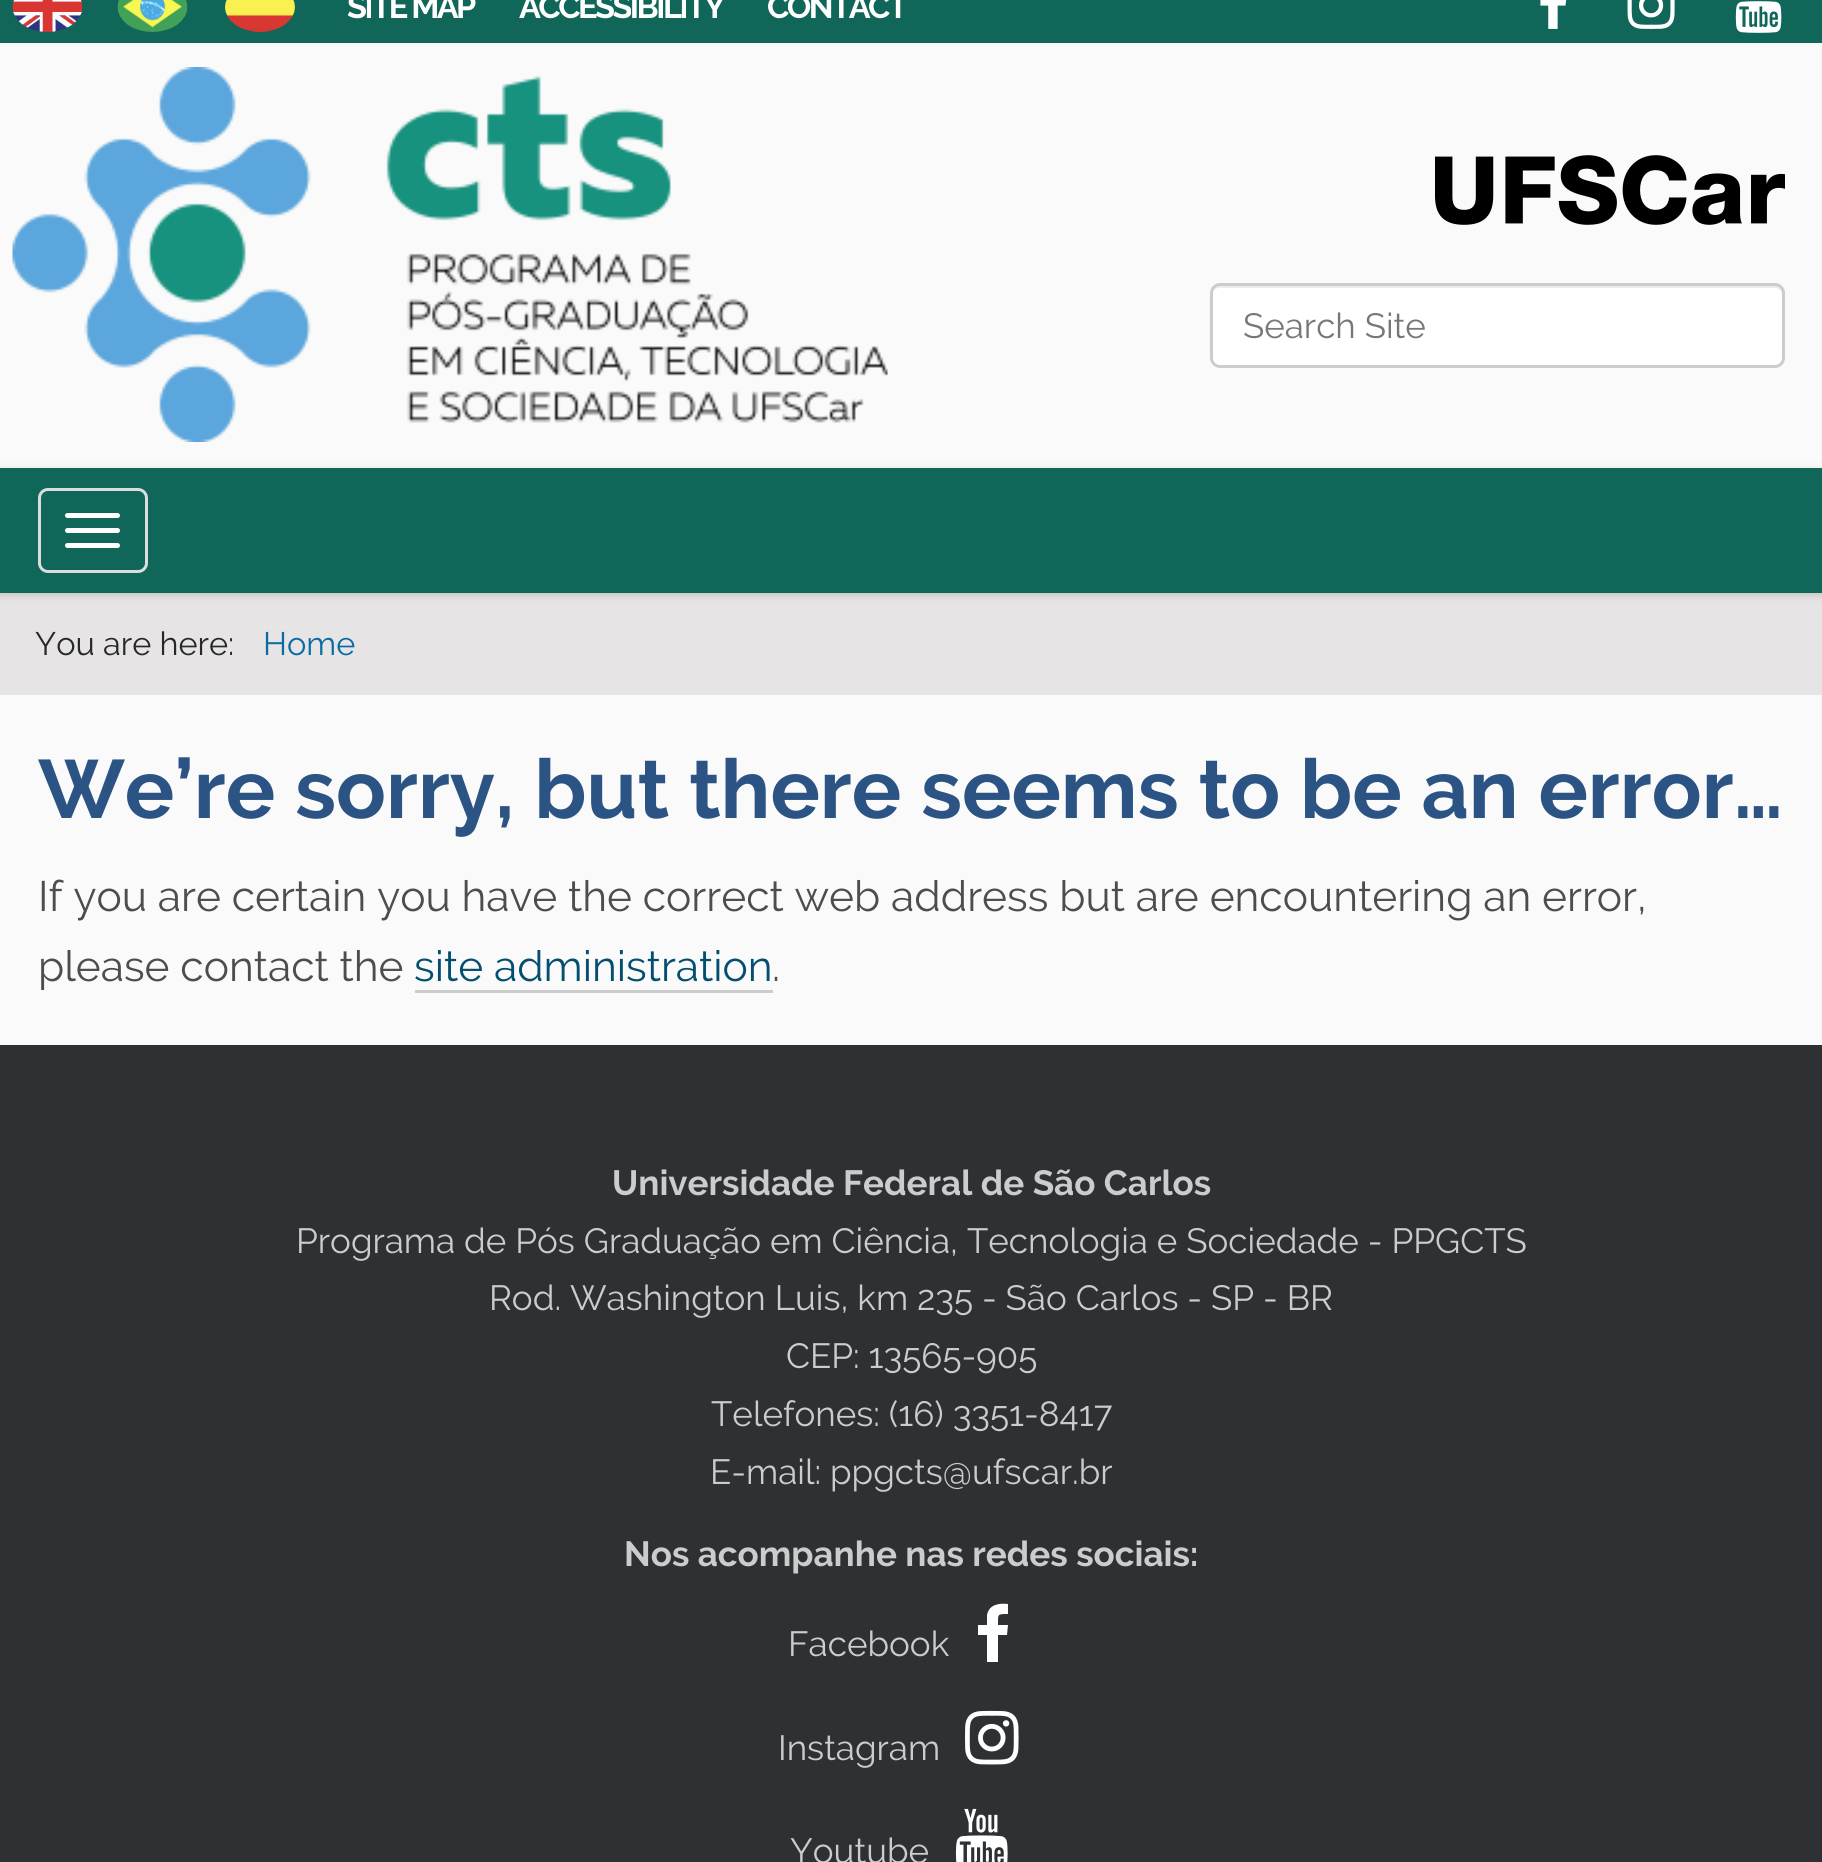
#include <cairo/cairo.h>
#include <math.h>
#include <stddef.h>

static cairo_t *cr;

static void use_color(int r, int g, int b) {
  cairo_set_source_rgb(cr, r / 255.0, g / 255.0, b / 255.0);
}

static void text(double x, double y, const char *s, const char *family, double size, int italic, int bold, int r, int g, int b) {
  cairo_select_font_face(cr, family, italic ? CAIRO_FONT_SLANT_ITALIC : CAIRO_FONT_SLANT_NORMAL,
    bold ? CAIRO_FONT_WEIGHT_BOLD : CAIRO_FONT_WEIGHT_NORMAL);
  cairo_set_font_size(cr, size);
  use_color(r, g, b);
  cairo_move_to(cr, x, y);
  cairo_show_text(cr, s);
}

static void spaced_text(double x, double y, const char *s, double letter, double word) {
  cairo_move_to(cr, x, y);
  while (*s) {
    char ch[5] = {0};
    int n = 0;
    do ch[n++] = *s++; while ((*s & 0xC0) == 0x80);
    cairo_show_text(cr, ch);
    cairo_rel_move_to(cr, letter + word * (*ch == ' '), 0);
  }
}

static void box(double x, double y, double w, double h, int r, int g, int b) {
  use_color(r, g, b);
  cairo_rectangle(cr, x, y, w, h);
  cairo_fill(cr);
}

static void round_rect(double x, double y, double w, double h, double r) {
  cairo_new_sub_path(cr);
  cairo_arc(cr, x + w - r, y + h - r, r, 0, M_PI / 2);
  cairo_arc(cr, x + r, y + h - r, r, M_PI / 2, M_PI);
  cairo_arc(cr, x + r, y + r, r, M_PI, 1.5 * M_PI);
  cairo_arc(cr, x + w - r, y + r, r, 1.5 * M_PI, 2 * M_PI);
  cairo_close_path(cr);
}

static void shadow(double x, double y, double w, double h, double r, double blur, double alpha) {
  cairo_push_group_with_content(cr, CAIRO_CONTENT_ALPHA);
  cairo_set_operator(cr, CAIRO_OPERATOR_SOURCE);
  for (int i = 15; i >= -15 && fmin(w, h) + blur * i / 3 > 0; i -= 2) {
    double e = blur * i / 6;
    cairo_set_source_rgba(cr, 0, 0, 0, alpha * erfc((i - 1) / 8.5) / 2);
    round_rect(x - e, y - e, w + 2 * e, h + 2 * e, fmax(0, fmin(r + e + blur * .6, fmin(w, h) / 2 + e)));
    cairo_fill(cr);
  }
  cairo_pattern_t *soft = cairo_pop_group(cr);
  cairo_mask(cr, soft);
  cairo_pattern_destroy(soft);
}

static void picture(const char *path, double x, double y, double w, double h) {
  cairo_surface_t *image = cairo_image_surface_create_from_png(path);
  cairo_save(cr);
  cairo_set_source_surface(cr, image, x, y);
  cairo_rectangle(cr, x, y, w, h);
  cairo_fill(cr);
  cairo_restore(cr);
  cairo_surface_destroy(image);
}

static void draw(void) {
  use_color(250, 250, 250);
  cairo_paint(cr);
  box(0, 0, 1822, 43, 15, 102, 89);
  picture("img_01.png", 12, 0, 71, 32);
  picture("img_02.png", 117, 0, 71, 32);
  picture("img_03.png", 225, 0, 70, 32);
  picture("img_04.png", 1540, 0, 27, 29);
  picture("img_05.png", 1627, 0, 48, 29);
  picture("img_06.png", 1735, 1, 47, 32);
  picture("img_07.png", 1435, 155, 350, 70);
  picture("img_08.png", 12, 67, 876, 375);
  use_color(255, 255, 255);
  round_rect(1210, 283, 575, 85, 10);
  cairo_fill(cr);
  use_color(236, 236, 236);
  cairo_new_path(cr);
  cairo_move_to(cr, 1220, 288);
  cairo_line_to(cr, 1775, 288);
  cairo_curve_to(cr, 1779, 288, 1782, 291, 1782, 295);
  cairo_line_to(cr, 1782, 361);
  cairo_curve_to(cr, 1783, 360, 1783, 358, 1783, 357);
  cairo_line_to(cr, 1783, 293);
  cairo_curve_to(cr, 1783, 289, 1779, 285, 1775, 285);
  cairo_line_to(cr, 1221, 285);
  cairo_curve_to(cr, 1217, 285, 1214, 288, 1213, 291);
  cairo_curve_to(cr, 1215, 289, 1217, 288, 1220, 288);
  cairo_close_path(cr);
  cairo_fill(cr);
  round_rect(1211.5, 284.5, 572, 82, 8.5);
  use_color(204, 204, 204);
  cairo_set_line_width(cr, 3);
  cairo_stroke(cr);
  box(0, 593, 1822, 102, 230, 228, 228);
  use_color(0, 0, 0);
  shadow(0, 470, 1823, 125, 0, 4, 0.17);
  box(0, 468, 1822, 125, 15, 102, 89);
  round_rect(39.5, 489.5, 107, 82, 8.5);
  use_color(221, 221, 221);
  cairo_stroke(cr);
  use_color(255, 255, 255);
  round_rect(65, 513, 55, 5, 2.5);
  cairo_fill(cr);
  round_rect(65, 528, 55, 5, 2.5);
  cairo_fill(cr);
  round_rect(65, 543, 55, 5, 2.5);
  cairo_fill(cr);
  box(415, 990, 358, 3, 204, 204, 204);
  box(0, 1045, 1822, 817, 46, 49, 51);
  use_color(255, 255, 255);
  cairo_new_path(cr);
  cairo_move_to(cr, 1008, 1604);
  cairo_line_to(cr, 1008, 1614);
  cairo_curve_to(cr, 997, 1614, 998, 1614, 998, 1625);
  cairo_line_to(cr, 1008, 1625);
  cairo_line_to(cr, 1007, 1635);
  cairo_line_to(cr, 998, 1635);
  cairo_line_to(cr, 998, 1662);
  cairo_line_to(cr, 987, 1662);
  cairo_line_to(cr, 987, 1635);
  cairo_line_to(cr, 978, 1635);
  cairo_line_to(cr, 978, 1625);
  cairo_line_to(cr, 987, 1625);
  cairo_line_to(cr, 987, 1615);
  cairo_curve_to(cr, 989, 1604, 1000, 1603, 1008, 1604);
  cairo_close_path(cr);
  cairo_fill(cr);
  picture("img_09.png", 965, 1710, 54, 55);
  picture("img_10.png", 955, 1808, 53, 54);
  cairo_select_font_face(cr, "Raleway", CAIRO_FONT_SLANT_NORMAL, CAIRO_FONT_WEIGHT_BOLD);
  cairo_set_font_size(cr, 32.5);
  spaced_text(347, 18, "SITE MAP", -2.5, 0);
  spaced_text(519, 18, "ACCESSIBILITY", -2.5, 0);
  spaced_text(767, 18, "CONTACT", -2.5, 0);
  text(1243, 338, "Search Site", "Raleway", 35, 0, 0, 119, 119, 119);
  text(35, 655, "You are here:", "Raleway", 32.5, 0, 0, 40, 40, 40);
  text(263, 655, "Home", "Raleway", 32.5, 0, 0, 8, 108, 163);
  text(38, 818, "We’re sorry, but there seems to be an error…", "Raleway", 82.5, 0, 1, 43, 84, 132);
  text(38, 911, "If you are certain you have the correct web address but are encountering an error,", "Raleway", 42.5, 0, 0, 77, 77, 77);
  text(38, 981, "please contact the", "Raleway", 42.5, 0, 0, 77, 77, 77);
  text(414, 981, "site administration", "Raleway", 42.5, 0, 0, 4, 79, 113);
  text(772, 981, ".", "Raleway", 42.5, 0, 0, 77, 77, 77);
  text(612, 1195, "Universidade Federal de São Carlos", "Raleway", 35, 0, 1, 204, 204, 204);
  text(296, 1253, "Programa de Pós Graduação em Ciência, Tecnologia e Sociedade - PPGCTS", "Raleway", 35, 0, 0, 204, 204, 204);
  text(489, 1310, "Rod. Washington Luis, km 235 - São Carlos - SP - BR", "Raleway", 35, 0, 0, 204, 204, 204);
  text(786, 1368, "CEP: 13565-905", "Raleway", 35, 0, 0, 204, 204, 204);
  text(711, 1426, "Telefones: (16) 3351-8417", "Raleway", 35, 0, 0, 204, 204, 204);
  text(710, 1484, "E-mail: ppgcts@ufscar.br", "Raleway", 35, 0, 0, 204, 204, 204);
  text(624, 1566, "Nos acompanhe nas redes sociais:", "Raleway", 35, 0, 1, 204, 204, 204);
  text(788, 1656, "Facebook", "Raleway", 35, 0, 0, 204, 204, 204);
  text(778, 1760, "Instagram", "Raleway", 35, 0, 0, 204, 204, 204);
  text(790, 1863, "Youtube", "Raleway", 35, 0, 0, 204, 204, 204);
}

int main(void) {
  cairo_surface_t *surface = cairo_image_surface_create(CAIRO_FORMAT_RGB24, 1822, 1862);
  cr = cairo_create(surface);
  cairo_font_options_t *options = cairo_font_options_create();
  cairo_font_options_set_hint_metrics(options, CAIRO_HINT_METRICS_OFF);
  cairo_font_options_set_hint_style(options, CAIRO_HINT_STYLE_NONE);
  cairo_set_font_options(cr, options);
  cairo_set_miter_limit(cr, 4);
  draw();
  cairo_surface_write_to_png(surface, "out.png");
  cairo_font_options_destroy(options);
  cairo_destroy(cr);
  cairo_surface_destroy(surface);
  return 0;
}
